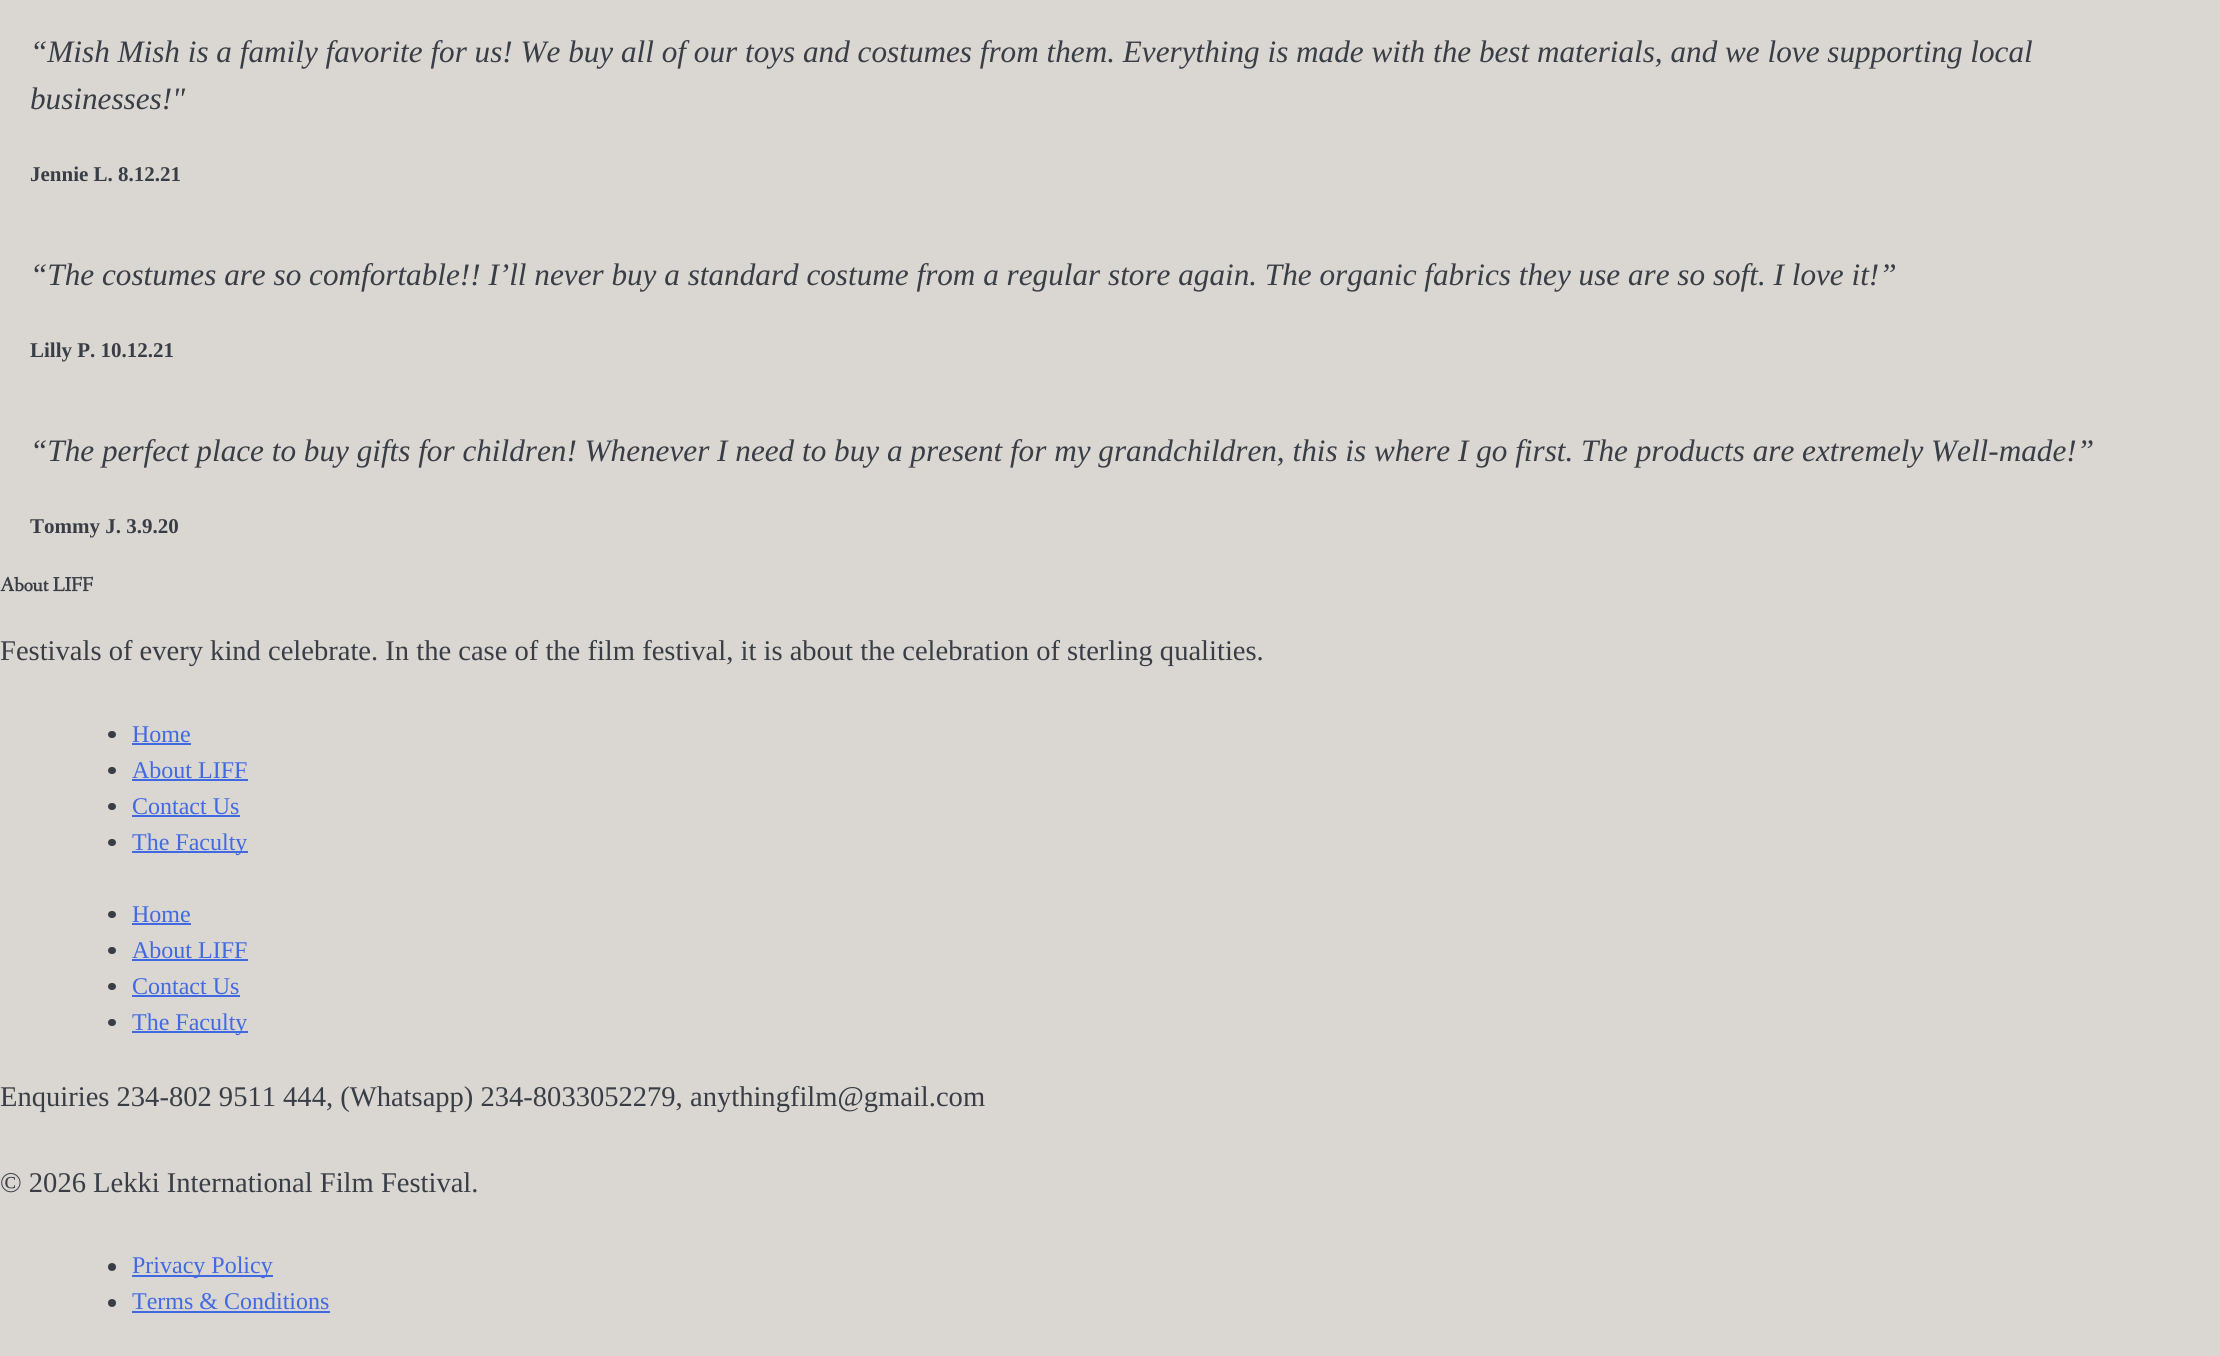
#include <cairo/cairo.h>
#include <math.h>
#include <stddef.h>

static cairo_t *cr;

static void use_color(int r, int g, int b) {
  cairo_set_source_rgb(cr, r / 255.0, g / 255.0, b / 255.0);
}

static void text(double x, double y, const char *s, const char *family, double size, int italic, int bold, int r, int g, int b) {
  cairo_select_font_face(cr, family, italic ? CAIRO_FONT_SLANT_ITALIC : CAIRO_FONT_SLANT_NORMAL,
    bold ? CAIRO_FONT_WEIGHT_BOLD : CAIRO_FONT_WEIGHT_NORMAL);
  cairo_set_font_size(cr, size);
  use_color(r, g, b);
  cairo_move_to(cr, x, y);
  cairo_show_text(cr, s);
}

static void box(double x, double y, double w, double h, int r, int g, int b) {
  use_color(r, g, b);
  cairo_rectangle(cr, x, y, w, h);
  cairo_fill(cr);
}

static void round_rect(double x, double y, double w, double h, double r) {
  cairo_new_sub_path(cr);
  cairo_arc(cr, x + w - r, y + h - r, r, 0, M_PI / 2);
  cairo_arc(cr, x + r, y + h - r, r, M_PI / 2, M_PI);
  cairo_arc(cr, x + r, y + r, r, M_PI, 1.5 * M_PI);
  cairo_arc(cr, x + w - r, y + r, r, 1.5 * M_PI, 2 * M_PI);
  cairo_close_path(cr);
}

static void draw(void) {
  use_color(218, 214, 209);
  cairo_paint(cr);
  use_color(57, 62, 70);
  round_rect(108, 731, 8, 7, 3.5);
  cairo_fill(cr);
  box(132, 743, 59, 2, 65, 105, 225);
  use_color(57, 62, 70);
  round_rect(108, 767, 8, 7, 3.5);
  cairo_fill(cr);
  box(132, 779, 116, 2, 65, 105, 225);
  use_color(57, 62, 70);
  round_rect(108, 803, 8, 7, 3.5);
  cairo_fill(cr);
  box(132, 815, 108, 2, 65, 105, 225);
  use_color(57, 62, 70);
  round_rect(108, 839, 8, 7, 3.5);
  cairo_fill(cr);
  box(132, 851, 116, 2, 65, 105, 225);
  use_color(57, 62, 70);
  round_rect(108, 911, 8, 7, 3.5);
  cairo_fill(cr);
  box(132, 923, 59, 2, 65, 105, 225);
  use_color(57, 62, 70);
  round_rect(108, 947, 8, 7, 3.5);
  cairo_fill(cr);
  box(132, 959, 116, 2, 65, 105, 225);
  use_color(57, 62, 70);
  round_rect(108, 983, 8, 7, 3.5);
  cairo_fill(cr);
  box(132, 995, 108, 2, 65, 105, 225);
  use_color(57, 62, 70);
  round_rect(108, 1019, 8, 7, 3.5);
  cairo_fill(cr);
  box(132, 1031, 116, 2, 65, 105, 225);
  use_color(57, 62, 70);
  cairo_arc(cr, 112, 1267, 4, 0, 2 * M_PI);
  cairo_fill(cr);
  box(132, 1275, 141, 2, 65, 105, 225);
  use_color(57, 62, 70);
  cairo_arc(cr, 112, 1303, 4, 0, 2 * M_PI);
  cairo_fill(cr);
  box(132, 1311, 198, 2, 65, 105, 225);
  text(30, 62, "“Mish Mish is a family favorite for us! We buy all of our toys and costumes from them. Everything is made with the best materials, and we love supporting local", "Liberation Serif", 31.2, 1, 0, 57, 62, 70);
  text(30, 109, "businesses!\"", "Liberation Serif", 31.2, 1, 0, 57, 62, 70);
  text(30, 181, "Jennie L. 8.12.21", "Liberation Serif", 21, 0, 1, 57, 62, 70);
  text(30, 285, "“The costumes are so comfortable!! I’ll never buy a standard costume from a regular store again. The organic fabrics they use are so soft. I love it!”", "Liberation Serif", 31.2, 1, 0, 57, 62, 70);
  text(30, 357, "Lilly P. 10.12.21", "Liberation Serif", 21, 0, 1, 57, 62, 70);
  text(30, 461, "“The perfect place to buy gifts for children! Whenever I need to buy a present for my grandchildren, this is where I go first. The products are extremely Well-made!”", "Liberation Serif", 31.2, 1, 0, 57, 62, 70);
  text(30, 533, "Tommy J. 3.9.20", "Liberation Serif", 21, 0, 1, 57, 62, 70);
  text(0, 591, "About LIFF", "Fanwood Text", 20, 0, 1, 57, 62, 70);
  text(0, 660, "Festivals of every kind celebrate. In the case of the film festival, it is about the celebration of sterling qualities.", "Liberation Serif", 28.55, 0, 0, 57, 62, 70);
  text(132, 742, "Home", "Liberation Serif", 24, 0, 0, 65, 105, 225);
  text(132, 778, "About LIFF", "Liberation Serif", 24, 0, 0, 65, 105, 225);
  text(132, 814, "Contact Us", "Liberation Serif", 24, 0, 0, 65, 105, 225);
  text(132, 850, "The Faculty", "Liberation Serif", 24, 0, 0, 65, 105, 225);
  text(132, 922, "Home", "Liberation Serif", 24, 0, 0, 65, 105, 225);
  text(132, 958, "About LIFF", "Liberation Serif", 24, 0, 0, 65, 105, 225);
  text(132, 994, "Contact Us", "Liberation Serif", 24, 0, 0, 65, 105, 225);
  text(132, 1030, "The Faculty", "Liberation Serif", 24, 0, 0, 65, 105, 225);
  text(0, 1106, "Enquiries 234-802 9511 444, (Whatsapp) 234-8033052279,", "Liberation Serif", 28.55, 0, 0, 57, 62, 70);
  text(690, 1106, "anythingfilm@gmail.com", "Liberation Serif", 28.55, 0, 0, 57, 62, 70);
  text(0, 1192, "© 2026 Lekki International Film Festival.", "Liberation Serif", 28.55, 0, 0, 57, 62, 70);
  text(132, 1273, "Privacy Policy", "Liberation Serif", 24, 0, 0, 65, 105, 225);
  text(132, 1309, "Terms & Conditions", "Liberation Serif", 24, 0, 0, 65, 105, 225);
}

int main(void) {
  cairo_surface_t *surface = cairo_image_surface_create(CAIRO_FORMAT_RGB24, 2220, 1356);
  cr = cairo_create(surface);
  cairo_font_options_t *options = cairo_font_options_create();
  cairo_font_options_set_hint_metrics(options, CAIRO_HINT_METRICS_OFF);
  cairo_font_options_set_hint_style(options, CAIRO_HINT_STYLE_NONE);
  cairo_set_font_options(cr, options);
  cairo_set_miter_limit(cr, 4);
  draw();
  cairo_surface_write_to_png(surface, "out.png");
  cairo_font_options_destroy(options);
  cairo_destroy(cr);
  cairo_surface_destroy(surface);
  return 0;
}
